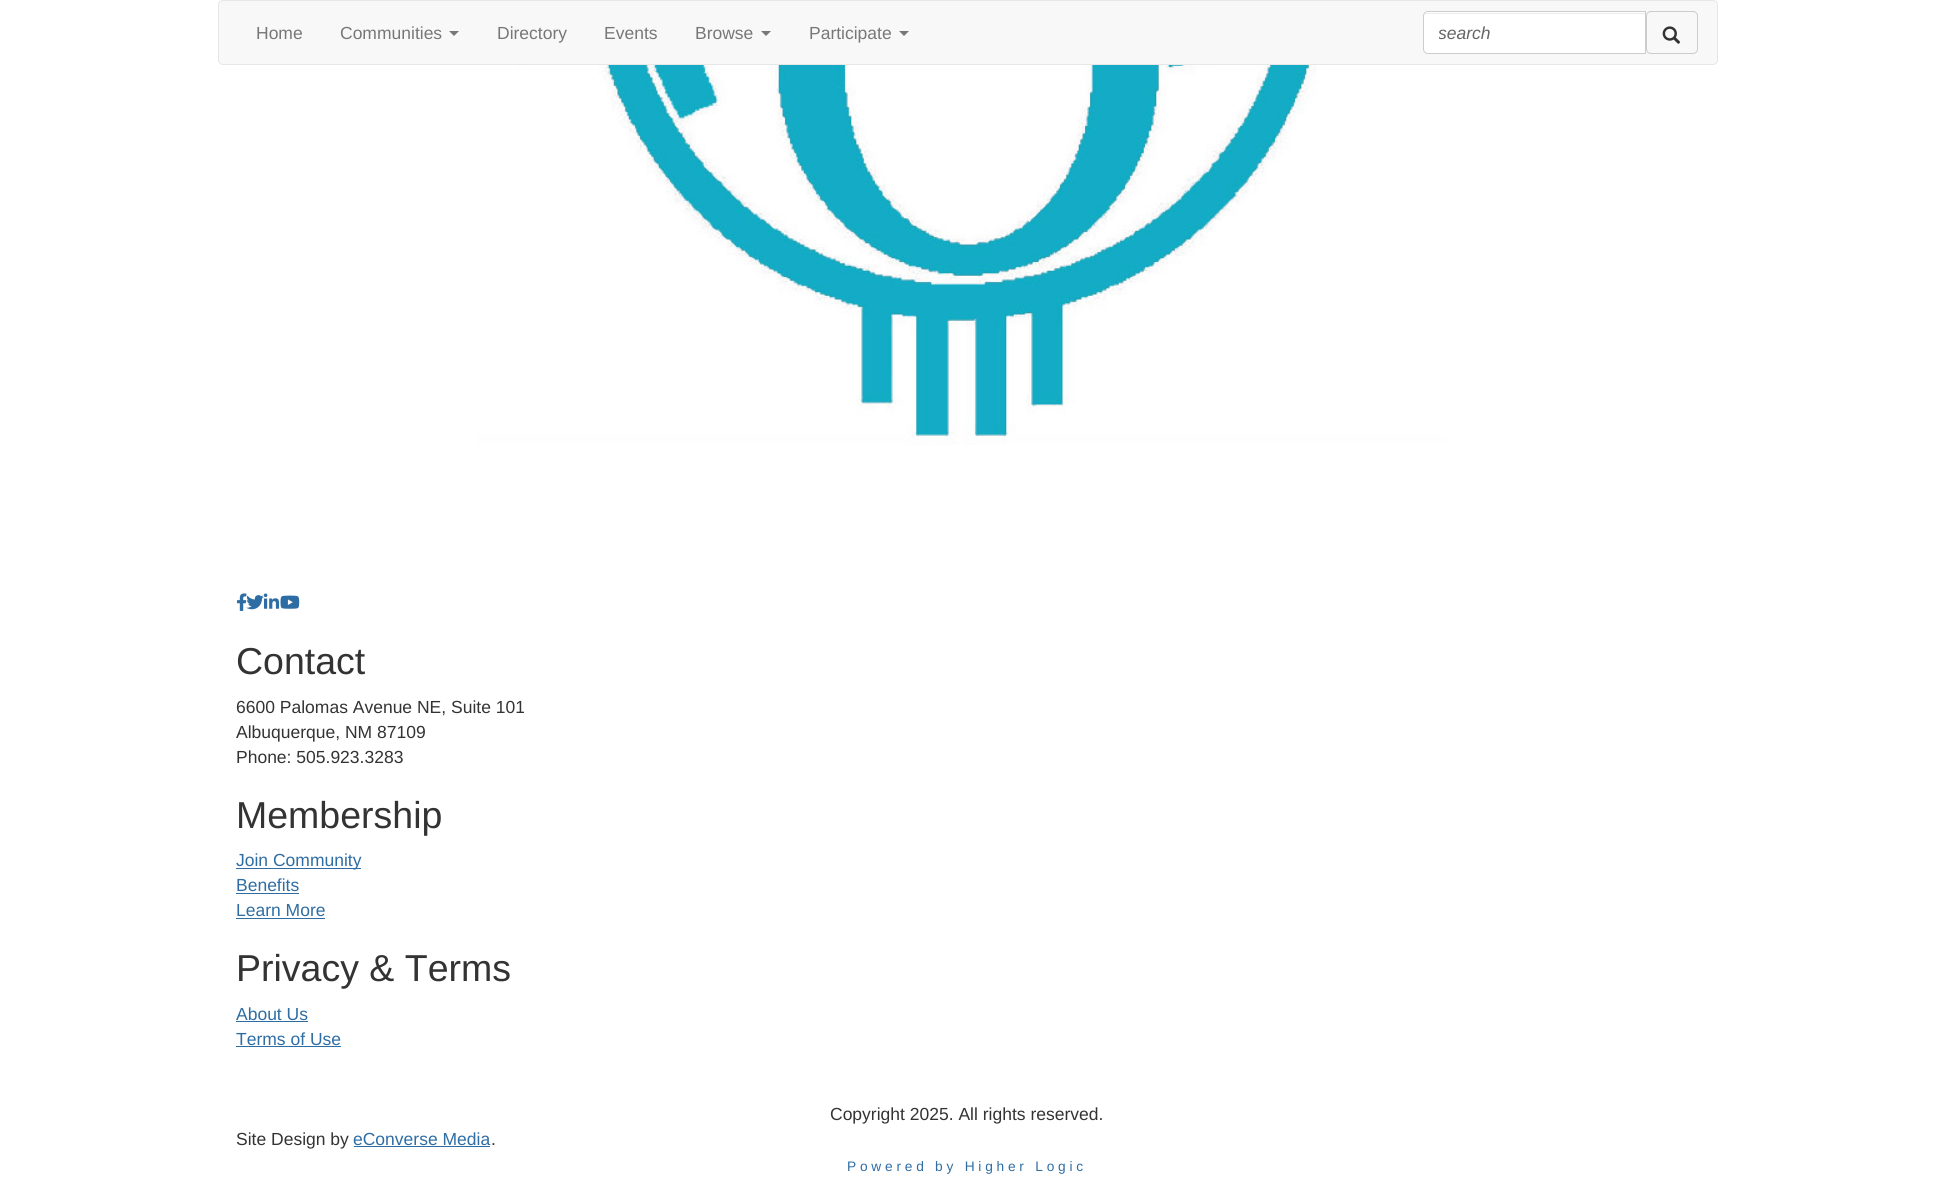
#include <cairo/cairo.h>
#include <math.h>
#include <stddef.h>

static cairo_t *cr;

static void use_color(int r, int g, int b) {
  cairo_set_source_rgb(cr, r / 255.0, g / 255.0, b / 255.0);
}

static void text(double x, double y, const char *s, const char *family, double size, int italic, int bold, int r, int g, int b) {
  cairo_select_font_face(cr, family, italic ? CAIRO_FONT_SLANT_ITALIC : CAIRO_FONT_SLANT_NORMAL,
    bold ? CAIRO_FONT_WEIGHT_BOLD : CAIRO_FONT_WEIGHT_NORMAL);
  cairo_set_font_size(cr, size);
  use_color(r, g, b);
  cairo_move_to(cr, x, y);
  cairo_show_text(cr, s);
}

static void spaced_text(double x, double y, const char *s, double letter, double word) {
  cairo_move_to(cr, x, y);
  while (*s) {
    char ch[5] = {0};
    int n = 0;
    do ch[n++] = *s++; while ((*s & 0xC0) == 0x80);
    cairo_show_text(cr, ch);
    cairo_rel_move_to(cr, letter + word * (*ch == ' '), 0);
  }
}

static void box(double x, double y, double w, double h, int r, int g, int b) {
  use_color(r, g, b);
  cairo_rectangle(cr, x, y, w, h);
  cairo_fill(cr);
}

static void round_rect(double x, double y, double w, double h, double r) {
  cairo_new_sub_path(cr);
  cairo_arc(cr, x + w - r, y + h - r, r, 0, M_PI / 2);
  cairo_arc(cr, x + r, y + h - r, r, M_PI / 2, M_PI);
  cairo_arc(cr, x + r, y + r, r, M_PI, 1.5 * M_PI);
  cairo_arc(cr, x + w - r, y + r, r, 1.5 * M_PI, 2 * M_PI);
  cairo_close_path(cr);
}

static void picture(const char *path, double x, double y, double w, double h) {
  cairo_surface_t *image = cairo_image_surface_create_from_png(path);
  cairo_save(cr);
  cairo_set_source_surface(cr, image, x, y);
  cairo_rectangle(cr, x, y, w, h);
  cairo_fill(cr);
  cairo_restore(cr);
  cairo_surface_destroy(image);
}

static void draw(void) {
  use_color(255, 255, 255);
  cairo_paint(cr);
  use_color(248, 248, 248);
  round_rect(218.5, 0.5, 1499, 64, 4.5);
  cairo_fill_preserve(cr);
  use_color(231, 231, 231);
  cairo_set_line_width(cr, 1);
  cairo_stroke(cr);
  use_color(119, 119, 119);
  cairo_new_path(cr);
  cairo_move_to(cr, 449, 31);
  cairo_line_to(cr, 459, 31);
  cairo_line_to(cr, 454, 36);
  cairo_close_path(cr);
  cairo_fill(cr);
  cairo_new_path(cr);
  cairo_move_to(cr, 761, 31);
  cairo_line_to(cr, 771, 31);
  cairo_line_to(cr, 766, 36);
  cairo_close_path(cr);
  cairo_fill(cr);
  cairo_new_path(cr);
  cairo_move_to(cr, 899, 31);
  cairo_line_to(cr, 909, 31);
  cairo_line_to(cr, 904, 36);
  cairo_close_path(cr);
  cairo_fill(cr);
  use_color(255, 255, 255);
  cairo_new_path(cr);
  cairo_move_to(cr, 1428, 11);
  cairo_line_to(cr, 1646, 11);
  cairo_line_to(cr, 1646, 54);
  cairo_line_to(cr, 1428, 54);
  cairo_curve_to(cr, 1425, 54, 1423, 52, 1423, 49);
  cairo_line_to(cr, 1423, 16);
  cairo_curve_to(cr, 1423, 13, 1425, 11, 1428, 11);
  cairo_close_path(cr);
  cairo_fill(cr);
  use_color(236, 236, 236);
  cairo_new_path(cr);
  cairo_move_to(cr, 1428, 14);
  cairo_line_to(cr, 1645, 14);
  cairo_line_to(cr, 1645, 13);
  cairo_line_to(cr, 1428, 13);
  cairo_curve_to(cr, 1425, 13, 1424, 15, 1424, 18);
  cairo_curve_to(cr, 1424, 15, 1425, 14, 1428, 14);
  cairo_close_path(cr);
  cairo_fill(cr);
  cairo_new_path(cr);
  cairo_move_to(cr, 1428, 11.5);
  cairo_line_to(cr, 1645.5, 11.5);
  cairo_line_to(cr, 1645.5, 53.5);
  cairo_line_to(cr, 1428, 53.5);
  cairo_curve_to(cr, 1425.5, 53.5, 1423.5, 51.5, 1423.5, 49);
  cairo_line_to(cr, 1423.5, 16);
  cairo_curve_to(cr, 1423.5, 13.5, 1425.5, 11.5, 1428, 11.5);
  cairo_close_path(cr);
  use_color(204, 204, 204);
  cairo_stroke(cr);
  round_rect(1646.5, 11.5, 51, 42, 4.5);
  cairo_stroke(cr);
  picture("img_01.png", 1662, 26, 19, 18);
  picture("img_02.png", 476, 65, 971, 380);
  picture("img_03.png", 237, 593, 10, 18);
  picture("img_04.png", 246, 595, 18, 15);
  picture("img_05.png", 263, 593, 17, 16);
  picture("img_06.png", 280, 595, 20, 14);
  box(236, 868, 125, 1, 46, 109, 164);
  box(236, 893, 63, 1, 46, 109, 164);
  box(236, 918, 89, 1, 46, 109, 164);
  box(236, 1021, 72, 1, 46, 109, 164);
  box(236, 1046, 105, 1, 46, 109, 164);
  box(354, 1146, 136, 1, 46, 109, 164);
  text(256, 39, "Home", "Liberation Sans", 17.5, 0, 0, 119, 119, 119);
  text(340, 39, "Communities", "Liberation Sans", 17.5, 0, 0, 119, 119, 119);
  text(497, 39, "Directory", "Liberation Sans", 17.5, 0, 0, 119, 119, 119);
  text(604, 39, "Events", "Liberation Sans", 17.5, 0, 0, 119, 119, 119);
  text(695, 39, "Browse", "Liberation Sans", 17.5, 0, 0, 119, 119, 119);
  text(809, 39, "Participate", "Liberation Sans", 17.5, 0, 0, 119, 119, 119);
  cairo_save(cr);
  cairo_rectangle(cr, 1439, 23, 191, 20);
  cairo_clip(cr);
  text(1438, 39, "search", "Liberation Sans", 17.5, 1, 0, 102, 102, 102);
  cairo_restore(cr);
  text(236, 674, "Contact", "Liberation Sans", 37.5, 0, 0, 51, 51, 51);
  text(236, 713, "6600 Palomas Avenue NE, Suite 101", "Liberation Sans", 17.5, 0, 0, 51, 51, 51);
  text(236, 738, "Albuquerque, NM 87109", "Liberation Sans", 17.5, 0, 0, 51, 51, 51);
  text(236, 763, "Phone: 505.923.3283", "Liberation Sans", 17.5, 0, 0, 51, 51, 51);
  text(236, 828, "Membership", "Liberation Sans", 37.5, 0, 0, 51, 51, 51);
  text(236, 866, "Join Community", "Liberation Sans", 17.5, 0, 0, 46, 109, 164);
  text(236, 891, "Benefits", "Liberation Sans", 17.5, 0, 0, 46, 109, 164);
  text(236, 916, "Learn More", "Liberation Sans", 17.5, 0, 0, 46, 109, 164);
  text(236, 981, "Privacy & Terms", "Liberation Sans", 37.5, 0, 0, 51, 51, 51);
  text(236, 1020, "About Us", "Liberation Sans", 17.5, 0, 0, 46, 109, 164);
  text(236, 1045, "Terms of Use", "Liberation Sans", 17.5, 0, 0, 46, 109, 164);
  text(830, 1120, "Copyright 2025. All rights reserved.", "Liberation Sans", 17.5, 0, 0, 51, 51, 51);
  text(236, 1145, "Site Design by", "Liberation Sans", 17.5, 0, 0, 51, 51, 51);
  text(353, 1145, "eConverse Media", "Liberation Sans", 17.5, 0, 0, 46, 109, 164);
  text(491, 1145, ".", "Liberation Sans", 17.5, 0, 0, 51, 51, 51);
  cairo_set_font_size(cr, 13.75);
  use_color(46, 109, 164);
  spaced_text(847, 1171, "Powered by Higher Logic", 3.75, 0);
}

int main(void) {
  cairo_surface_t *surface = cairo_image_surface_create(CAIRO_FORMAT_RGB24, 1933, 1177);
  cr = cairo_create(surface);
  cairo_font_options_t *options = cairo_font_options_create();
  cairo_font_options_set_hint_metrics(options, CAIRO_HINT_METRICS_OFF);
  cairo_font_options_set_hint_style(options, CAIRO_HINT_STYLE_NONE);
  cairo_set_font_options(cr, options);
  cairo_set_miter_limit(cr, 4);
  draw();
  cairo_surface_write_to_png(surface, "out.png");
  cairo_font_options_destroy(options);
  cairo_destroy(cr);
  cairo_surface_destroy(surface);
  return 0;
}
